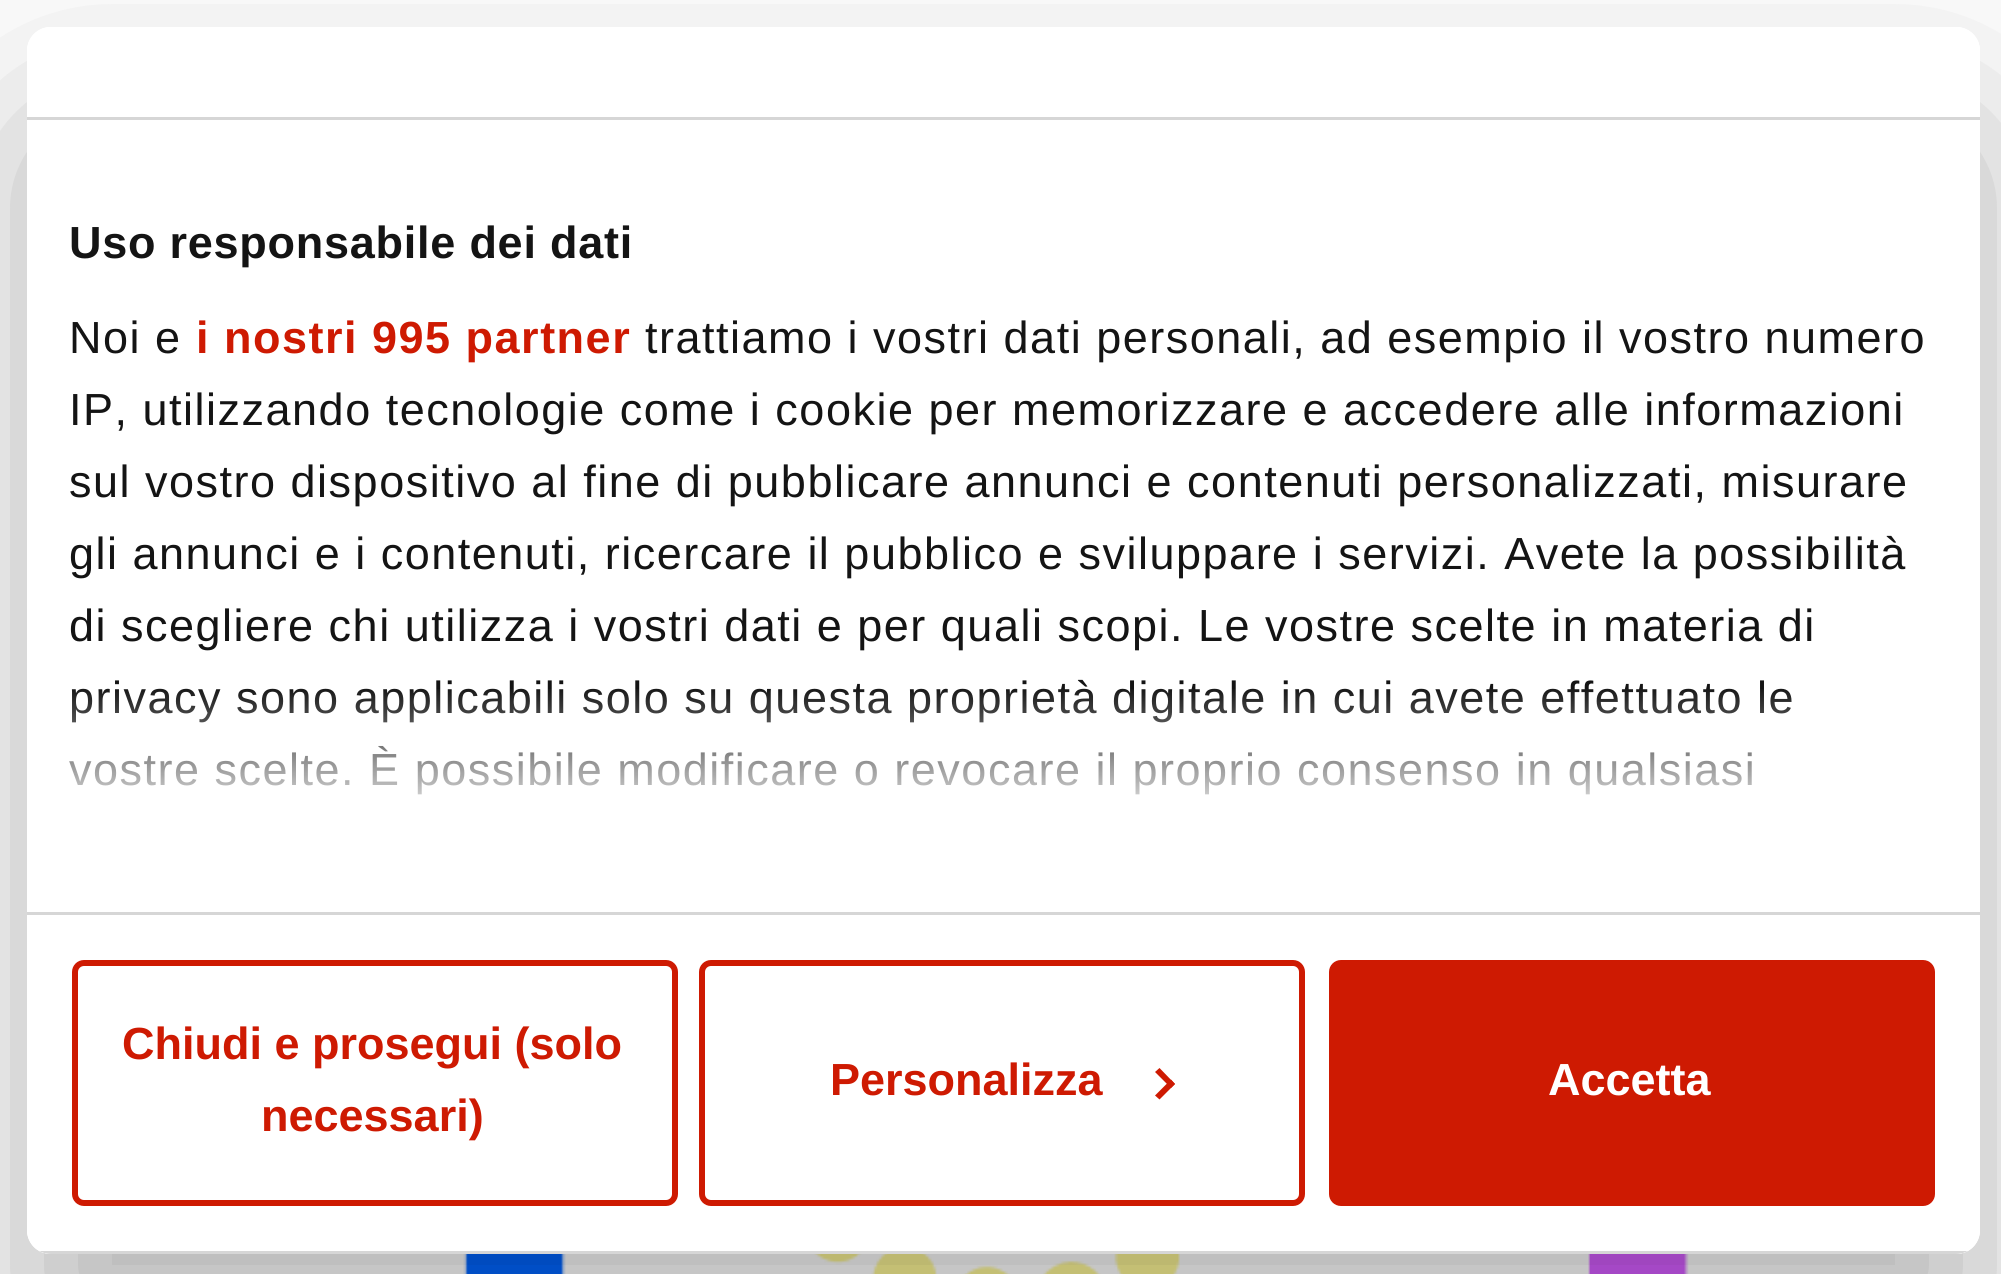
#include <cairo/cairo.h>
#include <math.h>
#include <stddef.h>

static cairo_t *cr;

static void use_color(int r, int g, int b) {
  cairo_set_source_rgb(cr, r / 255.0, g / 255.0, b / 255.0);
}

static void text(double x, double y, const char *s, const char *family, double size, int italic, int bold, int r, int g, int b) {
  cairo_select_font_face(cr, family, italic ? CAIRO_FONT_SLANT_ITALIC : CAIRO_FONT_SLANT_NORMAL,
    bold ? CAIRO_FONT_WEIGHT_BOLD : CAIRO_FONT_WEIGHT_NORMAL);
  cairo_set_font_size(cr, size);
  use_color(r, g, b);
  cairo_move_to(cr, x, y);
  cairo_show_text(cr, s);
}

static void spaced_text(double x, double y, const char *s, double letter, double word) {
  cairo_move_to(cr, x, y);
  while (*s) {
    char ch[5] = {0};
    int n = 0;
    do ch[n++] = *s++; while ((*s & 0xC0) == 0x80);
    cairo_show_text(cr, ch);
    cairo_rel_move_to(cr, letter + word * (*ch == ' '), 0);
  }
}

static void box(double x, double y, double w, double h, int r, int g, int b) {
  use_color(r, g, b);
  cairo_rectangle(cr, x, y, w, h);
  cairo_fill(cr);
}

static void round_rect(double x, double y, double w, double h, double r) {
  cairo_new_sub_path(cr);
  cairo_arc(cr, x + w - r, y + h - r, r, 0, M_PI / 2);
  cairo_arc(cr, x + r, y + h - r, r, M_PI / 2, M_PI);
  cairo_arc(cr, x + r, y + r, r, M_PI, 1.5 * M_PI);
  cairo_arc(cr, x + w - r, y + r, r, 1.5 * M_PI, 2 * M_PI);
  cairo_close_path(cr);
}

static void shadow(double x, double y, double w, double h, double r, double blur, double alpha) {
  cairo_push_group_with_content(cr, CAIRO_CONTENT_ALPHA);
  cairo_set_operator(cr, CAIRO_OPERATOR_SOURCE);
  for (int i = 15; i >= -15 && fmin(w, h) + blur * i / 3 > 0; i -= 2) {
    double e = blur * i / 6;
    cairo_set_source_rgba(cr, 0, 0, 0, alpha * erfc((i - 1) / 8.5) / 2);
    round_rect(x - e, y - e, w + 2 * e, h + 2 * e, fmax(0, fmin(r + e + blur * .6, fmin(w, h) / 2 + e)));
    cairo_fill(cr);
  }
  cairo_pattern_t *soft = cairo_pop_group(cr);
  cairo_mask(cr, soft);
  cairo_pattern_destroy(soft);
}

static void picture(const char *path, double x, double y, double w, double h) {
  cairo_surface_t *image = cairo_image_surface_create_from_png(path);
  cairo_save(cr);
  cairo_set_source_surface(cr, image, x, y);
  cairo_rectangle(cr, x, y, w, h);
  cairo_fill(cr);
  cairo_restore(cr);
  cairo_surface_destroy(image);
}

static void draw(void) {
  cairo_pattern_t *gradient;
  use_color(255, 255, 255);
  cairo_paint(cr);
  picture("img_01.png", 463, 1254, 1226, 20);
  cairo_save(cr);
  cairo_set_fill_rule(cr, CAIRO_FILL_RULE_EVEN_ODD);
  cairo_new_path(cr);
  cairo_move_to(cr, 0, 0);
  cairo_line_to(cr, 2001, 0);
  cairo_line_to(cr, 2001, 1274);
  cairo_line_to(cr, 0, 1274);
  cairo_close_path(cr);
  cairo_move_to(cr, 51, 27);
  cairo_line_to(cr, 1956, 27);
  cairo_curve_to(cr, 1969.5, 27, 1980, 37.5, 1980, 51);
  cairo_line_to(cr, 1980, 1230);
  cairo_curve_to(cr, 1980, 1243.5, 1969.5, 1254, 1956, 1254);
  cairo_line_to(cr, 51, 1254);
  cairo_curve_to(cr, 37.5, 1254, 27, 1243.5, 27, 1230);
  cairo_line_to(cr, 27, 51);
  cairo_curve_to(cr, 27, 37.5, 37.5, 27, 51, 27);
  cairo_close_path(cr);
  cairo_clip(cr);
  use_color(0, 0, 0);
  shadow(27, 123, 1953, 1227, 24, 102, 0.3);
  cairo_restore(cr);
  use_color(255, 255, 255);
  round_rect(27, 27, 1953, 1227, 24);
  cairo_fill(cr);
  box(27, 117, 1953, 3, 214, 214, 214);
  box(27, 912, 1953, 3, 214, 214, 214);
  cairo_save(cr);
  round_rect(27, 27, 1953, 1227, 24);
  cairo_clip(cr);
  box(39, 1251, 1929, 3, 214, 214, 214);
  cairo_restore(cr);
  round_rect(75, 963, 600, 240, 9);
  use_color(206, 26, 2);
  cairo_set_line_width(cr, 6);
  cairo_stroke(cr);
  round_rect(702, 963, 600, 240, 9);
  cairo_stroke(cr);
  cairo_new_path(cr);
  cairo_move_to(cr, 1159.5, 1068);
  cairo_line_to(cr, 1175, 1084);
  cairo_line_to(cr, 1171, 1088);
  cairo_line_to(cr, 1155, 1072);
  cairo_close_path(cr);
  cairo_fill(cr);
  cairo_new_path(cr);
  cairo_move_to(cr, 1171, 1079.5);
  cairo_line_to(cr, 1175, 1084);
  cairo_line_to(cr, 1159.5, 1099.5);
  cairo_line_to(cr, 1155, 1095.5);
  cairo_close_path(cr);
  cairo_fill(cr);
  round_rect(1332, 963, 600, 240, 9);
  cairo_fill_preserve(cr);
  cairo_stroke(cr);
  cairo_select_font_face(cr, "Liberation Sans", CAIRO_FONT_SLANT_NORMAL, CAIRO_FONT_WEIGHT_BOLD);
  cairo_set_font_size(cr, 45);
  use_color(20, 20, 20);
  spaced_text(69, 258, "Uso responsabile dei dati", 0.75, 0);
  cairo_select_font_face(cr, "Liberation Sans", CAIRO_FONT_SLANT_NORMAL, CAIRO_FONT_WEIGHT_NORMAL);
  spaced_text(69, 353, "Noi e", 1.5, 0);
  cairo_select_font_face(cr, "Liberation Sans", CAIRO_FONT_SLANT_NORMAL, CAIRO_FONT_WEIGHT_BOLD);
  use_color(206, 26, 2);
  spaced_text(196, 353, "i nostri 995 partner", 1.5, 0);
  cairo_select_font_face(cr, "Liberation Sans", CAIRO_FONT_SLANT_NORMAL, CAIRO_FONT_WEIGHT_NORMAL);
  use_color(20, 20, 20);
  spaced_text(645, 353, "trattiamo i vostri dati personali, ad esempio il vostro numero", 1.5, 0);
  spaced_text(69, 425, "IP, utilizzando tecnologie come i cookie per memorizzare e accedere alle informazioni", 1.5, 0);
  spaced_text(69, 497, "sul vostro dispositivo al fine di pubblicare annunci e contenuti personalizzati, misurare", 1.5, 0);
  spaced_text(69, 569, "gli annunci e i contenuti, ricercare il pubblico e sviluppare i servizi. Avete la possibilità", 1.5, 0);
  spaced_text(69, 641, "di scegliere chi utilizza i vostri dati e per quali scopi. Le vostre scelte in materia di", 1.5, 0);
  spaced_text(69, 713, "privacy sono applicabili solo su questa proprietà digitale in cui avete effettuato le", 1.5, 0);
  spaced_text(69, 785, "vostre scelte. È possibile modificare o revocare il proprio consenso in qualsiasi", 1.5, 0);
  gradient = cairo_pattern_create_linear(983, 911, 983, 686);
  cairo_pattern_add_color_stop_rgba(gradient, 0, 1, 1, 1, 1);
  cairo_pattern_add_color_stop_rgba(gradient, 0.5, 1, 1, 1, 0.8);
  cairo_pattern_add_color_stop_rgba(gradient, 1, 1, 1, 1, 0);
  cairo_set_source(cr, gradient);
  cairo_pattern_destroy(gradient);
  cairo_rectangle(cr, 69, 689, 1723, 106);
  cairo_fill(cr);
  text(122, 1059, "Chiudi e prosegui (solo", "Liberation Sans", 45, 0, 1, 206, 26, 2);
  text(261, 1131, "necessari)", "Liberation Sans", 45, 0, 1, 206, 26, 2);
  text(830, 1095, "Personalizza", "Liberation Sans", 45, 0, 1, 206, 26, 2);
  text(1548, 1095, "Accetta", "Liberation Sans", 45, 0, 1, 255, 255, 255);
}

int main(void) {
  cairo_surface_t *surface = cairo_image_surface_create(CAIRO_FORMAT_RGB24, 2001, 1274);
  cr = cairo_create(surface);
  cairo_font_options_t *options = cairo_font_options_create();
  cairo_font_options_set_hint_metrics(options, CAIRO_HINT_METRICS_OFF);
  cairo_font_options_set_hint_style(options, CAIRO_HINT_STYLE_NONE);
  cairo_set_font_options(cr, options);
  cairo_set_miter_limit(cr, 4);
  draw();
  cairo_surface_write_to_png(surface, "out.png");
  cairo_font_options_destroy(options);
  cairo_destroy(cr);
  cairo_surface_destroy(surface);
  return 0;
}
